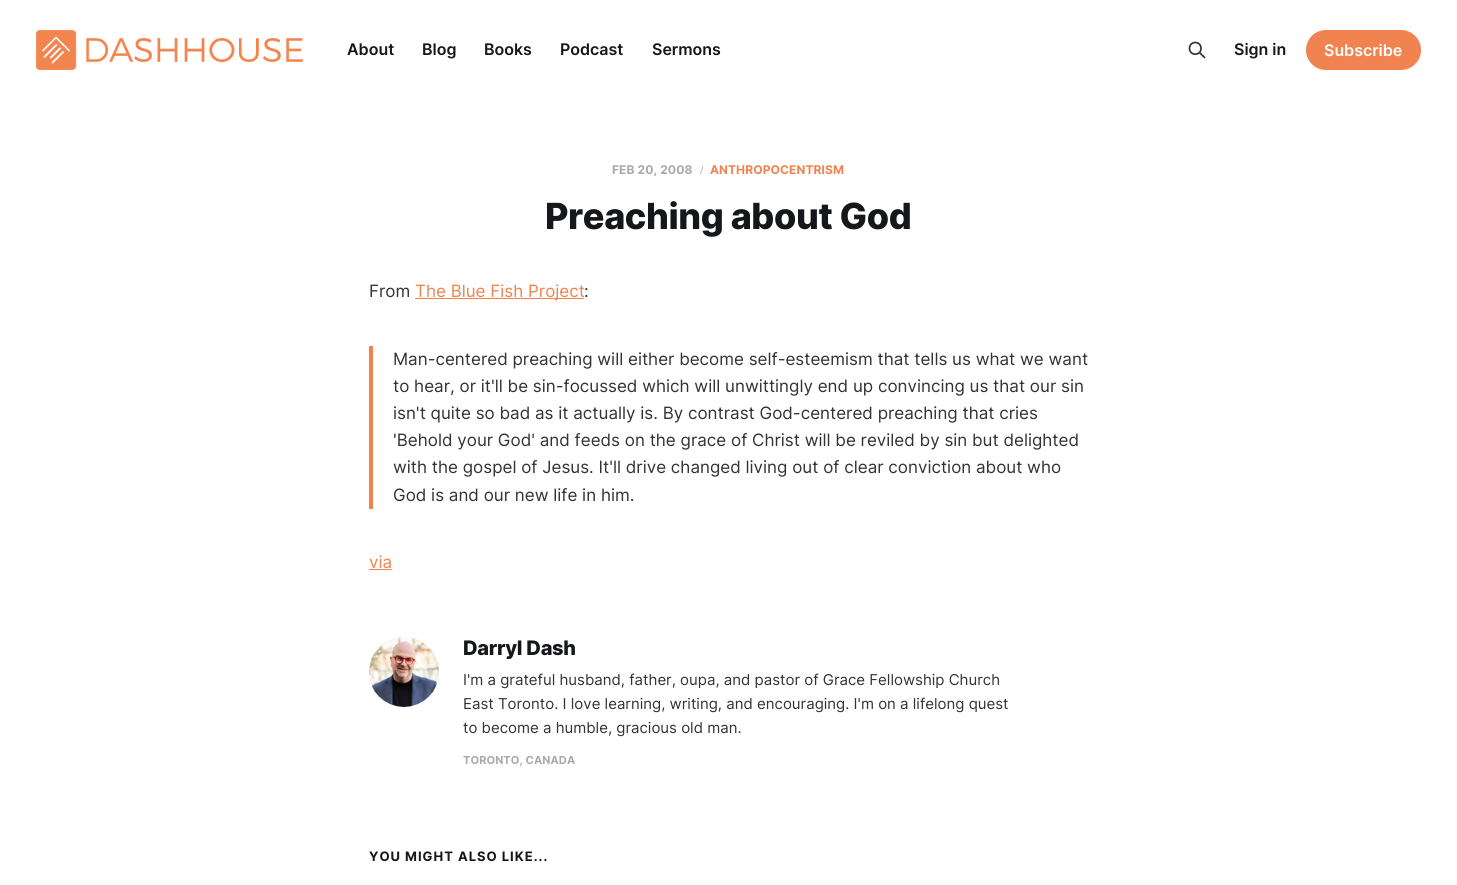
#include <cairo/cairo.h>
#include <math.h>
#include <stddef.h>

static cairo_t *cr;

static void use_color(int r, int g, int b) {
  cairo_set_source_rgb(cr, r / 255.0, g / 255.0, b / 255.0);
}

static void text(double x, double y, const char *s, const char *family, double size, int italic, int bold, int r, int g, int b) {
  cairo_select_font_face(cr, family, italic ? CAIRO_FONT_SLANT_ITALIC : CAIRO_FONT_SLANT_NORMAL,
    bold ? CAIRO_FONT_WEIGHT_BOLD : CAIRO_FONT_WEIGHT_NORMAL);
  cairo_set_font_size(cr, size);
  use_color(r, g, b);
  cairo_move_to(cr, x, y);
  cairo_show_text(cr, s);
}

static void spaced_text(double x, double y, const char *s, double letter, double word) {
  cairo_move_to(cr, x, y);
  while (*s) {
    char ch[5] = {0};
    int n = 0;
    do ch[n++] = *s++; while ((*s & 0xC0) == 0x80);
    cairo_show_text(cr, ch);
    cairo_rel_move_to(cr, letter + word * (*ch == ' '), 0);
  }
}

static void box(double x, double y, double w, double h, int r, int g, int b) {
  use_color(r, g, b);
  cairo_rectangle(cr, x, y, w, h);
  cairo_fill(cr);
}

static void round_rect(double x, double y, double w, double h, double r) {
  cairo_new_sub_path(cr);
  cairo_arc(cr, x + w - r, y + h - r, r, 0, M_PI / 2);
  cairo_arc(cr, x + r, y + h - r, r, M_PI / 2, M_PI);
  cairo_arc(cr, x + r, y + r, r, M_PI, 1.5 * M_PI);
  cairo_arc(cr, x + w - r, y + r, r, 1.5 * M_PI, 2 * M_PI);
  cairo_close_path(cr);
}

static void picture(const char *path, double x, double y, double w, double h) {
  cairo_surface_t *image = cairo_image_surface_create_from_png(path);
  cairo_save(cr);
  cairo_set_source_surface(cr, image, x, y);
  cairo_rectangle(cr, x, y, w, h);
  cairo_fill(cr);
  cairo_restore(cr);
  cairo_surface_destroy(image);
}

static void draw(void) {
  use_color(255, 255, 255);
  cairo_paint(cr);
  picture("img_01.png", 36, 30, 267, 40);
  cairo_new_path(cr);
  cairo_move_to(cr, 1204.5, 57.5);
  cairo_line_to(cr, 1199.5, 52.5);
  cairo_move_to(cr, 1201, 48.5);
  cairo_curve_to(cr, 1201, 56, 1189.5, 56, 1189.5, 48.5);
  cairo_curve_to(cr, 1189.5, 40.5, 1201, 40.5, 1201, 48.5);
  cairo_close_path(cr);
  use_color(51, 51, 51);
  cairo_set_line_width(cr, 1.7);
  cairo_set_line_cap(cr, CAIRO_LINE_CAP_ROUND);
  cairo_set_line_join(cr, CAIRO_LINE_JOIN_ROUND);
  cairo_stroke(cr);
  use_color(240, 131, 79);
  round_rect(1306, 30, 115, 40, 20);
  cairo_fill(cr);
  box(415, 298, 169, 1, 240, 131, 79);
  box(369, 346, 4, 163, 240, 131, 79);
  box(369, 569, 23, 1, 240, 131, 79);
  use_color(241, 241, 241);
  cairo_arc(cr, 404, 672, 35, 0, 2 * M_PI);
  cairo_fill(cr);
  picture("img_02.png", 369, 637, 70, 70);
  text(347, 55, "About", "Inter SemiBold", 16, 0, 0, 21, 23, 26);
  text(422, 55, "Blog", "Inter SemiBold", 16, 0, 0, 21, 23, 26);
  text(484, 55, "Books", "Inter SemiBold", 16, 0, 0, 21, 23, 26);
  text(560, 55, "Podcast", "Inter SemiBold", 16, 0, 0, 21, 23, 26);
  text(652, 55, "Sermons", "Inter SemiBold", 16, 0, 0, 21, 23, 26);
  text(1234, 55, "Sign in", "Inter SemiBold", 16, 0, 0, 21, 23, 26);
  text(1324, 56, "Subscribe", "Inter SemiBold", 16, 0, 0, 255, 255, 255);
  cairo_select_font_face(cr, "Inter", CAIRO_FONT_SLANT_NORMAL, CAIRO_FONT_WEIGHT_BOLD);
  cairo_set_font_size(cr, 12);
  use_color(170, 170, 170);
  spaced_text(612, 174, "FEB 20, 2008", 0.1, 0);
  cairo_select_font_face(cr, "Liberation Serif", CAIRO_FONT_SLANT_NORMAL, CAIRO_FONT_WEIGHT_BOLD);
  spaced_text(700, 174, "/", 0.1, 0);
  cairo_select_font_face(cr, "Inter", CAIRO_FONT_SLANT_NORMAL, CAIRO_FONT_WEIGHT_BOLD);
  use_color(240, 131, 79);
  spaced_text(710, 174, "ANTHROPOCENTRISM", 0.1, 0);
  cairo_select_font_face(cr, "Inter ExtraBold", CAIRO_FONT_SLANT_NORMAL, CAIRO_FONT_WEIGHT_NORMAL);
  cairo_set_font_size(cr, 36);
  use_color(21, 23, 26);
  spaced_text(545, 229, "Preaching about God", -0.4, 0);
  text(369, 297, "From", "Inter", 17, 0, 0, 51, 51, 51);
  text(415, 297, "The Blue Fish Project", "Inter", 17, 0, 0, 240, 131, 79);
  text(584, 297, ":", "Inter", 17, 0, 0, 51, 51, 51);
  text(393, 365, "Man-centered preaching will either become self-esteemism that tells us what we want", "Inter", 17, 0, 0, 51, 51, 51);
  text(393, 392, "to hear, or it'll be sin-focussed which will unwittingly end up convincing us that our sin", "Inter", 17, 0, 0, 51, 51, 51);
  text(393, 419, "isn't quite so bad as it actually is. By contrast God-centered preaching that cries", "Inter", 17, 0, 0, 51, 51, 51);
  text(393, 446, "'Behold your God' and feeds on the grace of Christ will be reviled by sin but delighted", "Inter", 17, 0, 0, 51, 51, 51);
  text(393, 473, "with the gospel of Jesus. It'll drive changed living out of clear conviction about who", "Inter", 17, 0, 0, 51, 51, 51);
  text(393, 501, "God is and our new life in him.", "Inter", 17, 0, 0, 51, 51, 51);
  text(369, 568, "via", "Inter", 17, 0, 0, 240, 131, 79);
  cairo_select_font_face(cr, "Inter ExtraBold", CAIRO_FONT_SLANT_NORMAL, CAIRO_FONT_WEIGHT_NORMAL);
  cairo_set_font_size(cr, 20);
  use_color(21, 23, 26);
  spaced_text(463, 655, "Darryl Dash", -0.25, 0);
  text(463, 685, "I'm a grateful husband, father, oupa, and pastor of Grace Fellowship Church", "Inter", 15, 0, 0, 51, 51, 51);
  text(463, 709, "East Toronto. I love learning, writing, and encouraging. I'm on a lifelong quest", "Inter", 15, 0, 0, 51, 51, 51);
  text(463, 733, "to become a humble, gracious old man.", "Inter", 15, 0, 0, 51, 51, 51);
  cairo_select_font_face(cr, "Inter", CAIRO_FONT_SLANT_NORMAL, CAIRO_FONT_WEIGHT_BOLD);
  cairo_set_font_size(cr, 11);
  use_color(170, 170, 170);
  spaced_text(463, 764, "TORONTO, CANADA", 0.1, 0);
  cairo_set_font_size(cr, 13);
  use_color(21, 23, 26);
  spaced_text(369, 861, "YOU MIGHT ALSO LIKE...", 1, 0);
}

int main(void) {
  cairo_surface_t *surface = cairo_image_surface_create(CAIRO_FORMAT_RGB24, 1457, 885);
  cr = cairo_create(surface);
  cairo_font_options_t *options = cairo_font_options_create();
  cairo_font_options_set_hint_metrics(options, CAIRO_HINT_METRICS_OFF);
  cairo_font_options_set_hint_style(options, CAIRO_HINT_STYLE_NONE);
  cairo_set_font_options(cr, options);
  cairo_set_miter_limit(cr, 4);
  draw();
  cairo_surface_write_to_png(surface, "out.png");
  cairo_font_options_destroy(options);
  cairo_destroy(cr);
  cairo_surface_destroy(surface);
  return 0;
}
